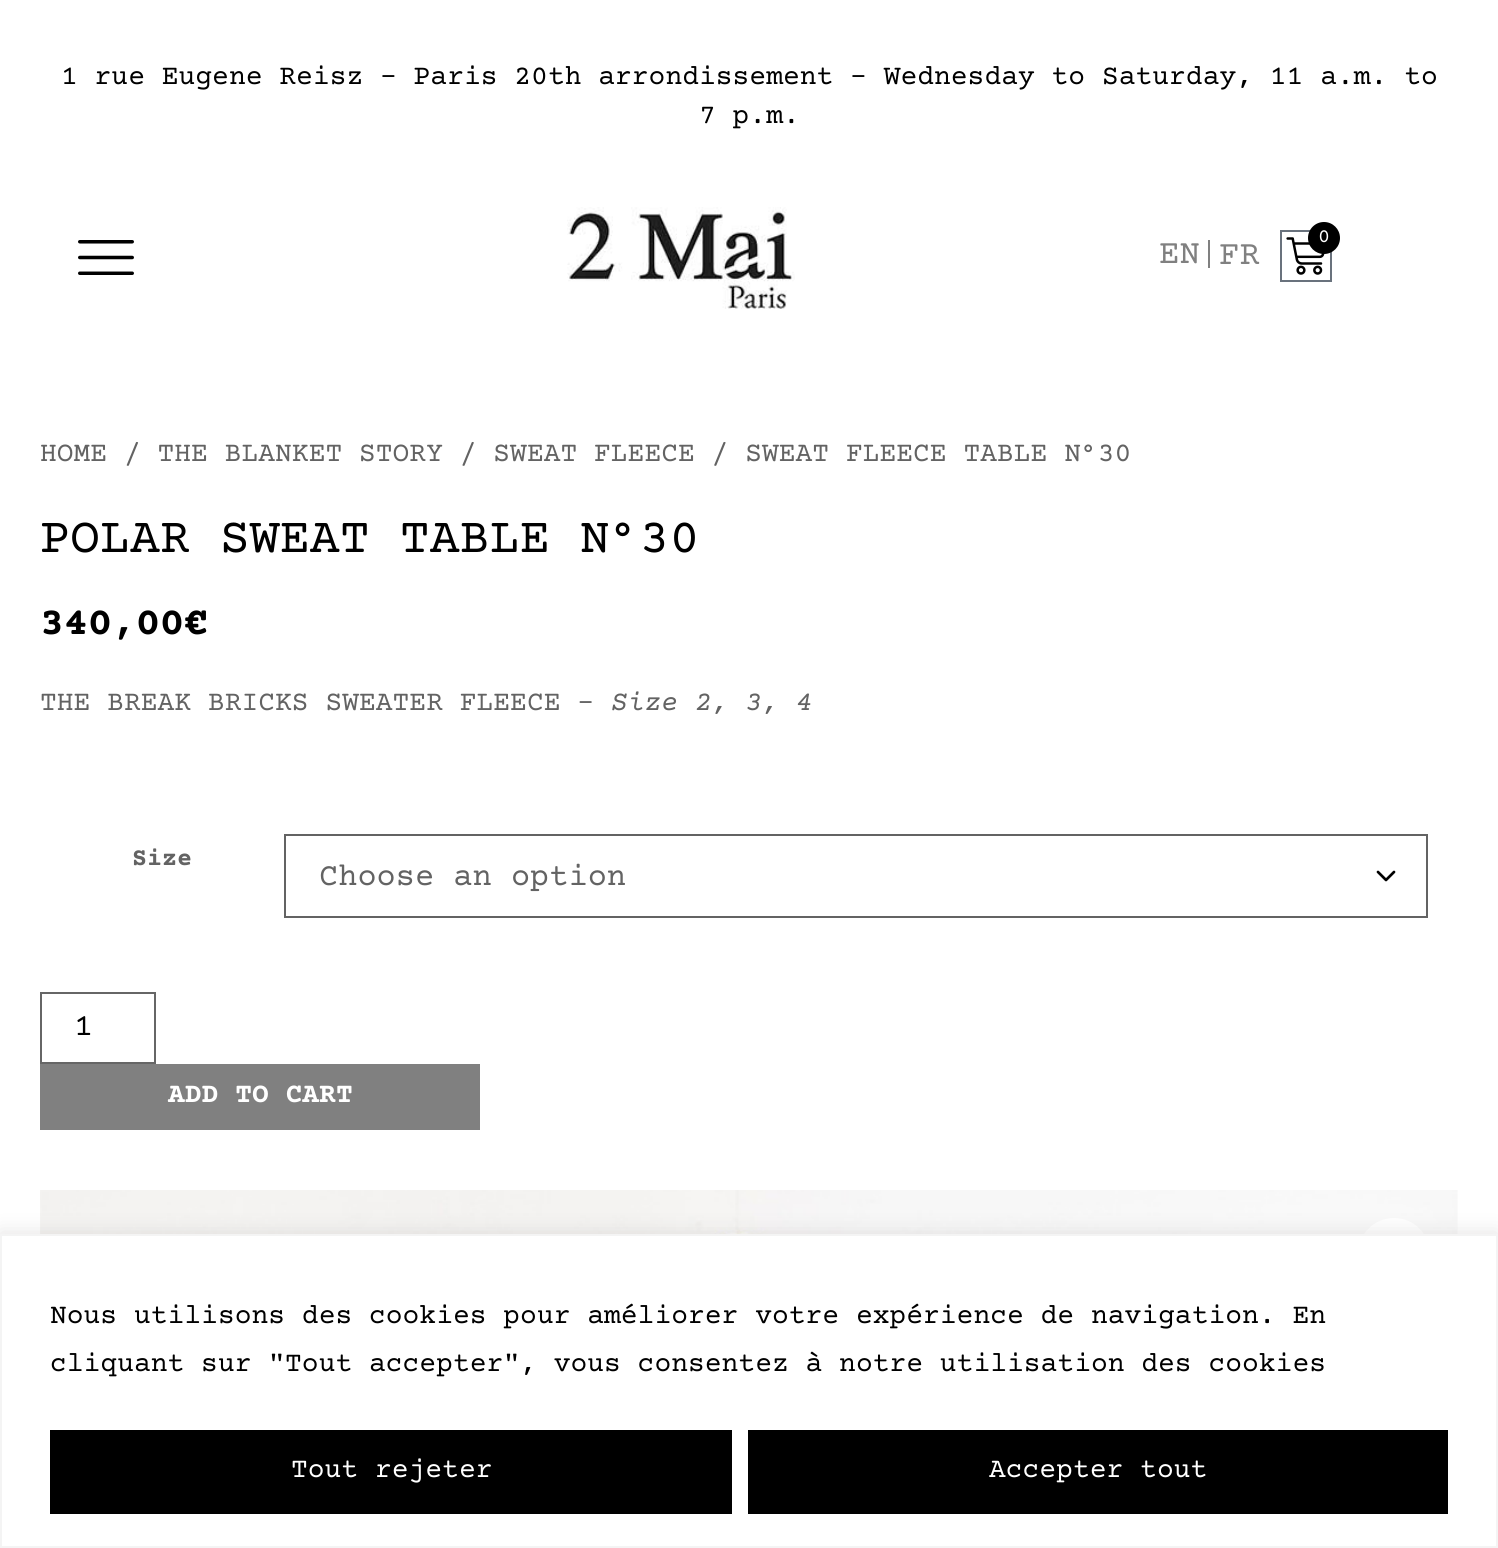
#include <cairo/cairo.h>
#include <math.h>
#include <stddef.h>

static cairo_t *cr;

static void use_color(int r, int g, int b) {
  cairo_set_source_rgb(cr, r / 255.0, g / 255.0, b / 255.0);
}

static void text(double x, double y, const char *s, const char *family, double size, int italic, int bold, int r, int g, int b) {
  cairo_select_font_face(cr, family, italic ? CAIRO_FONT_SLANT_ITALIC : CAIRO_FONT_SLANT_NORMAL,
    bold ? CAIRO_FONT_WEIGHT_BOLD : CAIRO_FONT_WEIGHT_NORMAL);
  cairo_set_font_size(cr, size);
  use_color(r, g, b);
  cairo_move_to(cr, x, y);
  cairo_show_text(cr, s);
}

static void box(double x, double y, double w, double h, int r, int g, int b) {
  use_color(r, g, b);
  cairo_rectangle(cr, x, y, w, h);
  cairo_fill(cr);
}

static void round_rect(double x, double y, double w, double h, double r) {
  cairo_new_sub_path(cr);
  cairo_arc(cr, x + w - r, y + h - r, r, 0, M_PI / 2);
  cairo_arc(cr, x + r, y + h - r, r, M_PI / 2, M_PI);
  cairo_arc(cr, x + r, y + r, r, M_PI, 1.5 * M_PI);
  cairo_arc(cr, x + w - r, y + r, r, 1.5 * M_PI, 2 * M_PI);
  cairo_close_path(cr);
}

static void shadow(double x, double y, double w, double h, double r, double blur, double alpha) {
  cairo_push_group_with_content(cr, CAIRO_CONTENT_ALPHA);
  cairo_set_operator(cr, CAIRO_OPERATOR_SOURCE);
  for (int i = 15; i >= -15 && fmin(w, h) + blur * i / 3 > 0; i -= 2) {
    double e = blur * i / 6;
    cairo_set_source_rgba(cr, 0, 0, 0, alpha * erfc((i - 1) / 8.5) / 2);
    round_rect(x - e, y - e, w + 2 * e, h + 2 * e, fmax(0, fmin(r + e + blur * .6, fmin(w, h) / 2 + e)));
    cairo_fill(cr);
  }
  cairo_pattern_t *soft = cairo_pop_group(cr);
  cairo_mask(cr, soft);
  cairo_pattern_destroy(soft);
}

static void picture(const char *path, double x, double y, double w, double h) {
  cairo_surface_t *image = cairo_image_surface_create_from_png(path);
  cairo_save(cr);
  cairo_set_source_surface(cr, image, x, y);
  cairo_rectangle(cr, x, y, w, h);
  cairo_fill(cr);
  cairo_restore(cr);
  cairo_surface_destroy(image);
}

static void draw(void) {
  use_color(255, 255, 255);
  cairo_paint(cr);
  picture("img_01.png", 78, 240, 56, 35);
  picture("img_02.png", 567, 207, 228, 102);
  cairo_rectangle(cr, 1281, 231, 50, 50);
  use_color(105, 114, 125);
  cairo_stroke(cr);
  picture("img_03.png", 1286, 237, 39, 38);
  use_color(0, 0, 0);
  cairo_arc(cr, 1324, 238, 16, 0, 2 * M_PI);
  cairo_fill(cr);
  box(1208, 240, 2, 28, 128, 128, 128);
  cairo_new_path(cr);
  cairo_move_to(cr, 1378, 872);
  cairo_line_to(cr, 1386, 880);
  cairo_line_to(cr, 1394, 872);
  use_color(0, 0, 0);
  cairo_set_line_width(cr, 2.7);
  cairo_set_line_cap(cr, CAIRO_LINE_CAP_ROUND);
  cairo_set_line_join(cr, CAIRO_LINE_JOIN_ROUND);
  cairo_stroke(cr);
  cairo_rectangle(cr, 285, 835, 1142, 82);
  use_color(99, 99, 99);
  cairo_set_line_width(cr, 2);
  cairo_set_line_cap(cr, CAIRO_LINE_CAP_BUTT);
  cairo_set_line_join(cr, CAIRO_LINE_JOIN_MITER);
  cairo_stroke(cr);
  cairo_rectangle(cr, 41, 993, 114, 70);
  use_color(102, 102, 102);
  cairo_stroke(cr);
  box(40, 1064, 440, 66, 128, 128, 128);
  picture("img_04.png", 40, 1190, 1418, 44);
  use_color(255, 255, 255);
  cairo_arc(cr, 1394, 1254, 36, 0, 2 * M_PI);
  cairo_fill(cr);
  use_color(172, 171, 171);
  shadow(0, 1232, 1498, 314, 0, 10, 0.3);
  use_color(255, 255, 255);
  cairo_rectangle(cr, 1, 1235, 1496, 312);
  cairo_fill_preserve(cr);
  use_color(244, 244, 244);
  cairo_stroke(cr);
  box(50, 1430, 682, 84, 0, 0, 0);
  box(748, 1430, 700, 84, 0, 0, 0);
  text(61, 84, "1 rue Eugene Reisz – Paris 20th arrondissement – Wednesday to Saturday, 11 a.m. to", "Courier Prime", 28, 0, 0, 0, 0, 0);
  text(699, 123, "7 p.m.", "Courier Prime", 28, 0, 0, 0, 0, 0);
  text(1318, 242, "0", "Courier Prime", 20, 0, 0, 255, 255, 255);
  text(1159, 263, "EN", "Courier Prime", 34, 0, 0, 128, 128, 128);
  text(1219, 264, "FR", "Courier Prime", 34, 0, 0, 128, 128, 128);
  text(40, 461, "HOME / THE BLANKET STORY / SWEAT FLEECE / SWEAT FLEECE TABLE N°30", "Courier Prime", 28, 0, 0, 99, 99, 99);
  text(40, 552, "POLAR SWEAT TABLE N°30", "Courier Prime", 50, 0, 0, 0, 0, 0);
  text(40, 634, "340,00€", "Courier Prime", 40, 0, 1, 0, 0, 0);
  text(40, 710, "THE BREAK BRICKS SWEATER FLEECE -", "Courier Prime", 28, 0, 0, 99, 99, 99);
  text(611, 710, "Size 2, 3, 4", "Courier Prime", 28, 1, 0, 99, 99, 99);
  text(132, 865, "Size", "Courier Prime", 25, 0, 1, 99, 99, 99);
  text(319, 885, "Choose an option", "Courier Prime", 32, 0, 0, 99, 99, 99);
  text(74, 1035, "1", "Courier Prime", 32, 0, 0, 0, 0, 0);
  text(168, 1102, "ADD TO CART", "Courier Prime", 28, 0, 1, 255, 255, 255);
  text(50, 1323, "Nous utilisons des cookies pour améliorer votre expérience de navigation. En", "Courier Prime", 28, 0, 0, 0, 0, 0);
  text(50, 1371, "cliquant sur \"Tout accepter\", vous consentez à notre utilisation des cookies", "Courier Prime", 28, 0, 0, 0, 0, 0);
  text(291, 1477, "Tout rejeter", "Courier Prime", 28, 0, 0, 255, 255, 255);
  text(989, 1477, "Accepter tout", "Courier Prime", 28, 0, 0, 255, 255, 255);
}

int main(void) {
  cairo_surface_t *surface = cairo_image_surface_create(CAIRO_FORMAT_RGB24, 1498, 1548);
  cr = cairo_create(surface);
  cairo_font_options_t *options = cairo_font_options_create();
  cairo_font_options_set_hint_metrics(options, CAIRO_HINT_METRICS_OFF);
  cairo_font_options_set_hint_style(options, CAIRO_HINT_STYLE_NONE);
  cairo_set_font_options(cr, options);
  cairo_set_miter_limit(cr, 4);
  draw();
  cairo_surface_write_to_png(surface, "out.png");
  cairo_font_options_destroy(options);
  cairo_destroy(cr);
  cairo_surface_destroy(surface);
  return 0;
}
